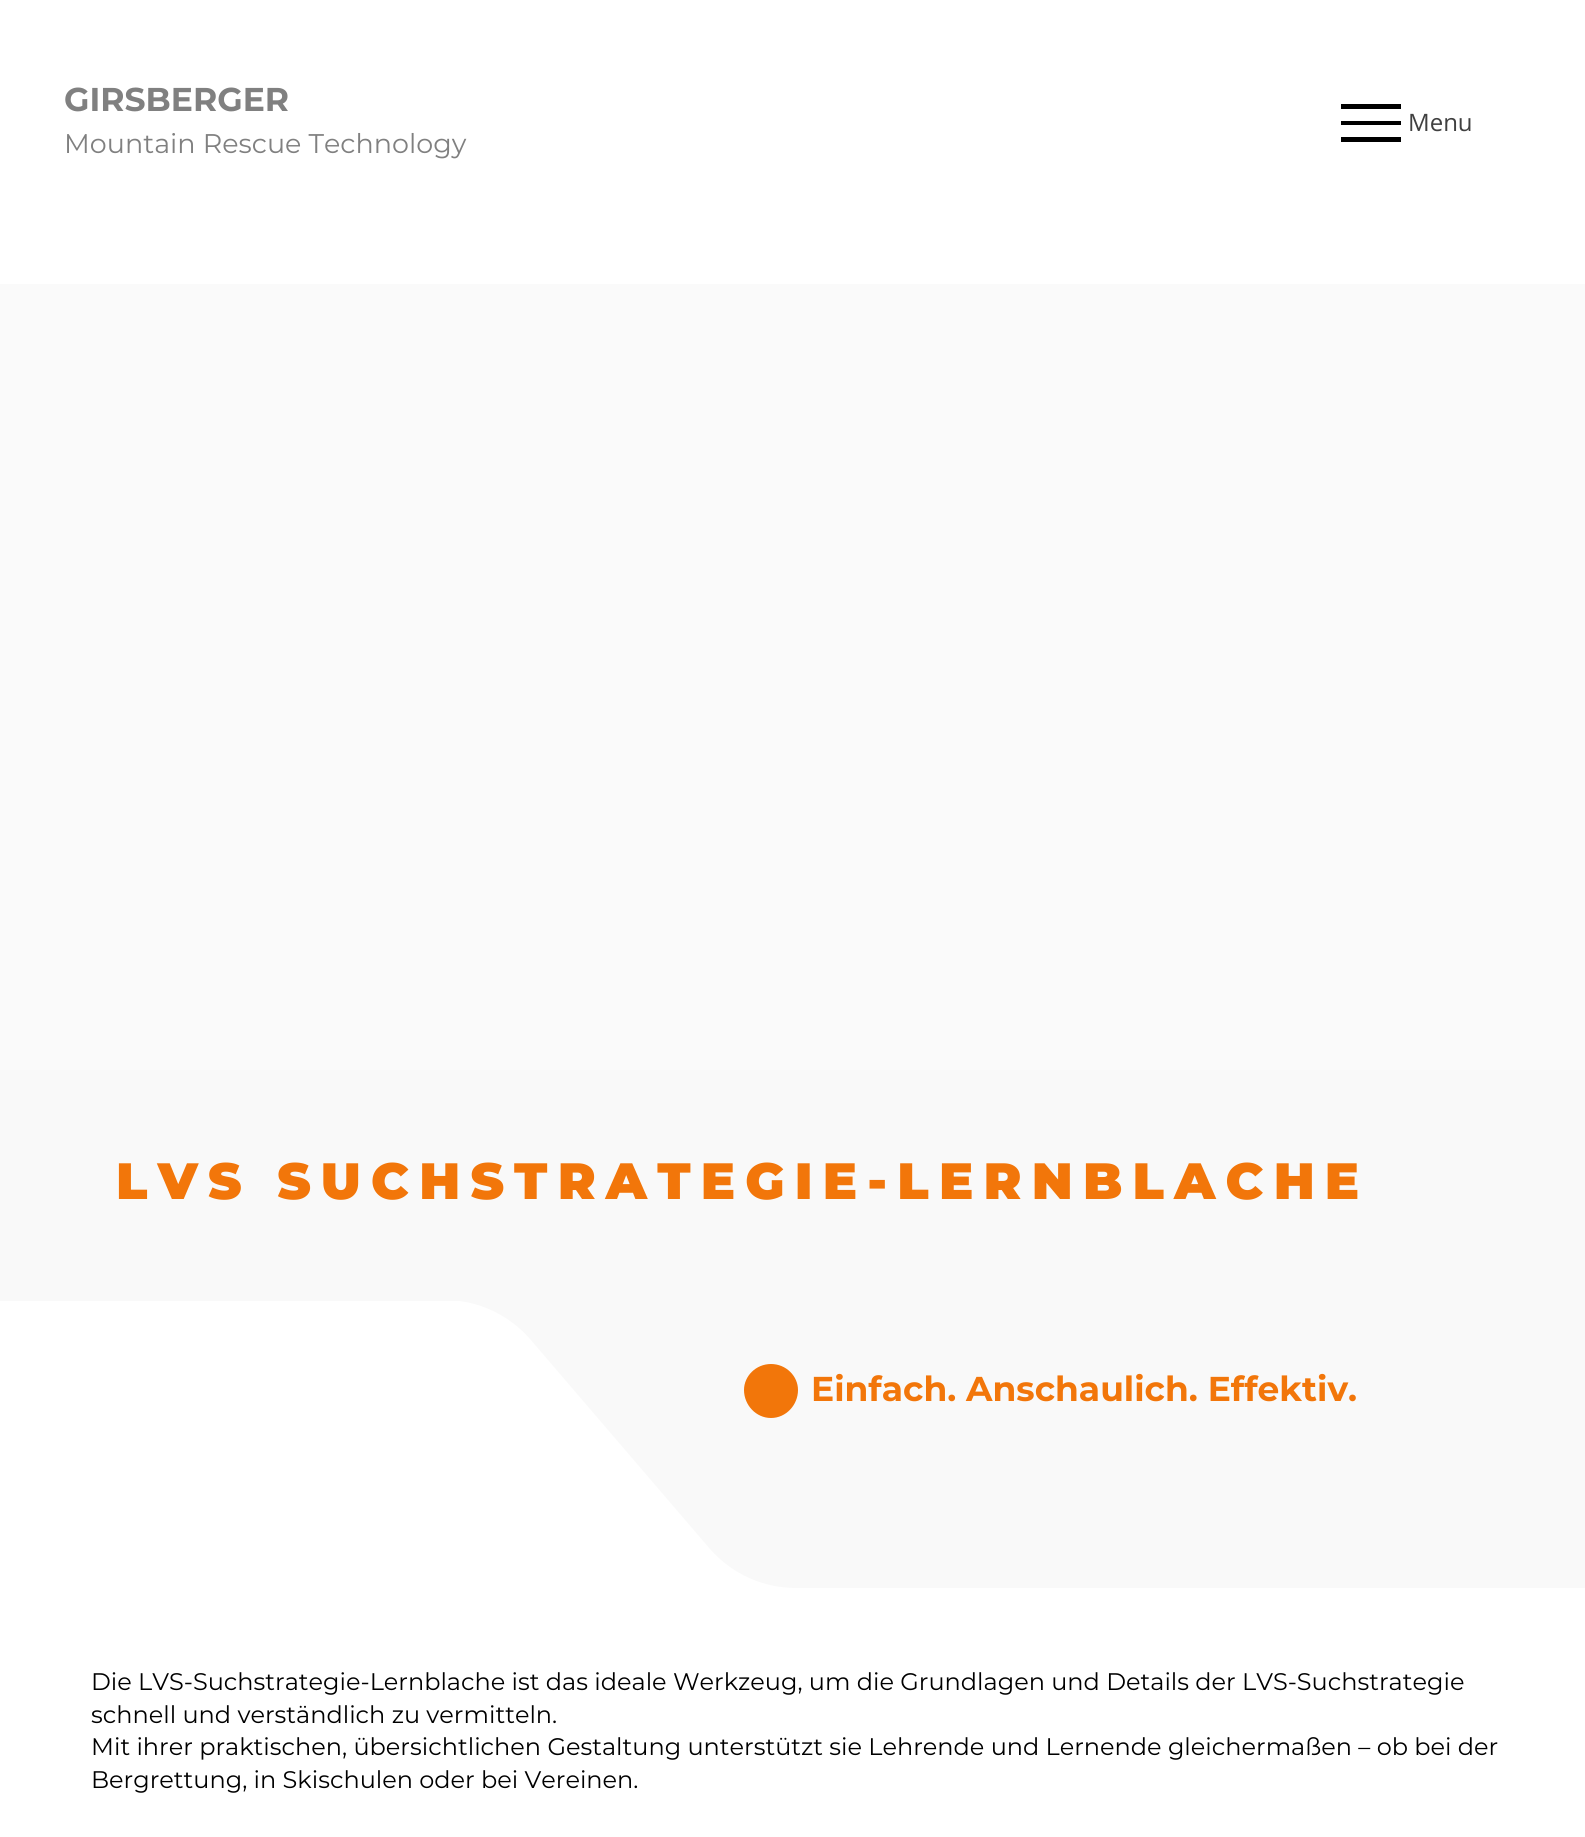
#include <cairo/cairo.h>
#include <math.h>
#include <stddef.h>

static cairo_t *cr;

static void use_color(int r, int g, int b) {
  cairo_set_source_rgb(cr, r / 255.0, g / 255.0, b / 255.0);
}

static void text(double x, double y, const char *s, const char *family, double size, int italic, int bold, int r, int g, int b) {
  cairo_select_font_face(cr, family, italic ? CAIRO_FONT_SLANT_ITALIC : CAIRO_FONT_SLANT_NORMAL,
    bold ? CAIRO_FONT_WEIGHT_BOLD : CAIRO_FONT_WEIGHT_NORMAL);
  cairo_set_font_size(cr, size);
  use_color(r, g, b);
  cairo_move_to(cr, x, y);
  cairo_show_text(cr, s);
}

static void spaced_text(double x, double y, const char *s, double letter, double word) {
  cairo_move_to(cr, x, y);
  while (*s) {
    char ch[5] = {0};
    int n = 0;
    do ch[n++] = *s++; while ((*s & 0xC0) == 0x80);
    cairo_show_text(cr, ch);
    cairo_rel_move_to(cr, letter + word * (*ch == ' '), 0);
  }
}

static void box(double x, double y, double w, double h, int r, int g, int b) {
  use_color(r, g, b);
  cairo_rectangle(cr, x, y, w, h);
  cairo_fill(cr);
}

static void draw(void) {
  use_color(255, 255, 255);
  cairo_paint(cr);
  box(1341, 137, 60, 5, 0, 0, 0);
  box(1341, 104, 60, 5, 0, 0, 0);
  box(1341, 121, 60, 4, 0, 0, 0);
  box(0, 284, 1585, 786, 250, 250, 250);
  box(0, 1070, 1585, 518, 249, 249, 249);
  cairo_save(cr);
  cairo_rectangle(cr, 0, 1301, 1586, 327);
  cairo_clip(cr);
  use_color(255, 255, 255);
  cairo_new_path(cr);
  cairo_move_to(cr, -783, 1628);
  cairo_line_to(cr, -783, 1358);
  cairo_curve_to(cr, -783, 1326, -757, 1300, -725, 1300);
  cairo_line_to(cr, 445, 1300);
  cairo_curve_to(cr, 478, 1300, 509, 1315, 530, 1339);
  cairo_line_to(cr, 710, 1549);
  cairo_curve_to(cr, 732, 1574, 763, 1588, 796, 1588);
  cairo_line_to(cr, 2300, 1588);
  cairo_curve_to(cr, 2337, 1588, 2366, 1559, 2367, 1522);
  cairo_line_to(cr, 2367, 1628);
  cairo_close_path(cr);
  cairo_fill(cr);
  cairo_restore(cr);
  use_color(242, 118, 10);
  cairo_new_path(cr);
  cairo_move_to(cr, 798, 1390);
  cairo_curve_to(cr, 798, 1405, 786, 1418, 771, 1418);
  cairo_curve_to(cr, 756, 1418, 744, 1405, 744, 1390);
  cairo_curve_to(cr, 744, 1376, 756, 1364, 771, 1364);
  cairo_curve_to(cr, 786, 1364, 798, 1376, 798, 1390);
  cairo_close_path(cr);
  cairo_fill(cr);
  text(64, 111, "GIRSBERGER", "Montserrat", 33, 0, 1, 128, 128, 128);
  text(64, 153, "Mountain Rescue Technology", "Montserrat", 27, 0, 0, 128, 128, 128);
  text(1408, 131, "Menu", "Open Sans", 24, 0, 0, 64, 64, 64);
  cairo_select_font_face(cr, "Montserrat Thin", CAIRO_FONT_SLANT_NORMAL, CAIRO_FONT_WEIGHT_NORMAL);
  cairo_set_font_size(cr, 51);
  use_color(242, 118, 10);
  spaced_text(116, 1199, "LVS SUCHSTRATEGIE-LERNBLACHE", 10.2, 0);
  text(811, 1401, "Einfach. Anschaulich. Effektiv.", "Montserrat", 34.5, 0, 1, 242, 118, 10);
  text(91, 1690, "Die LVS-Suchstrategie-Lernblache ist das ideale Werkzeug, um die Grundlagen und Details der LVS-Suchstrategie", "Montserrat", 24, 0, 0, 0, 0, 0);
  text(91, 1723, "schnell und verständlich zu vermitteln.", "Montserrat", 24, 0, 0, 0, 0, 0);
  text(91, 1755, "Mit ihrer praktischen, übersichtlichen Gestaltung unterstützt sie Lehrende und Lernende gleichermaßen – ob bei der", "Montserrat", 24, 0, 0, 0, 0, 0);
  text(91, 1788, "Bergrettung, in Skischulen oder bei Vereinen.", "Montserrat", 24, 0, 0, 0, 0, 0);
}

int main(void) {
  cairo_surface_t *surface = cairo_image_surface_create(CAIRO_FORMAT_RGB24, 1585, 1837);
  cr = cairo_create(surface);
  cairo_font_options_t *options = cairo_font_options_create();
  cairo_font_options_set_hint_metrics(options, CAIRO_HINT_METRICS_OFF);
  cairo_font_options_set_hint_style(options, CAIRO_HINT_STYLE_NONE);
  cairo_set_font_options(cr, options);
  cairo_set_miter_limit(cr, 4);
  draw();
  cairo_surface_write_to_png(surface, "out.png");
  cairo_font_options_destroy(options);
  cairo_destroy(cr);
  cairo_surface_destroy(surface);
  return 0;
}
